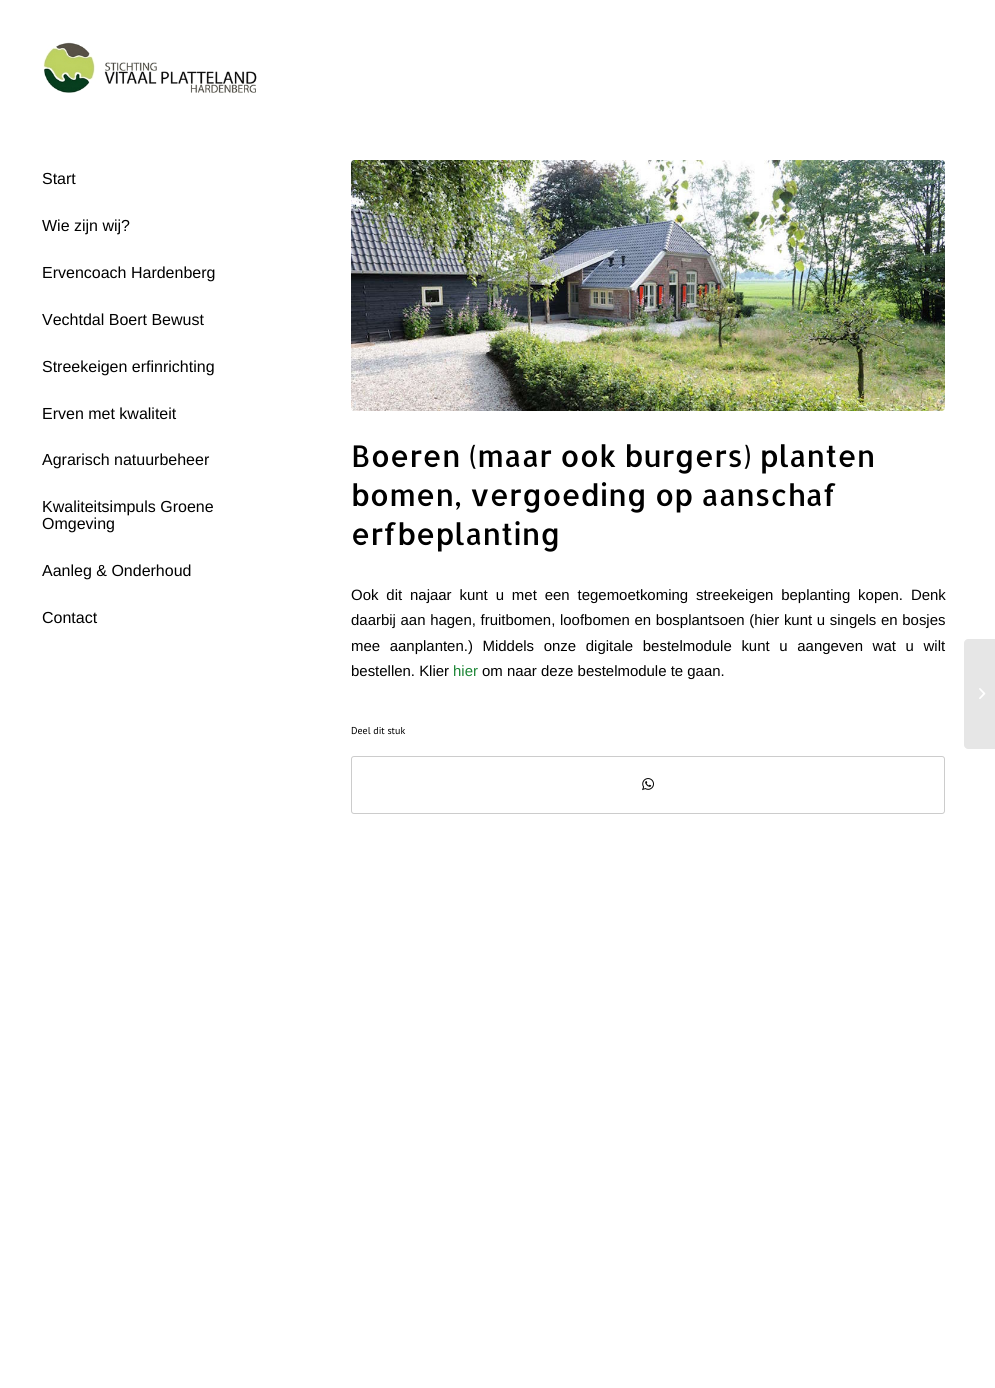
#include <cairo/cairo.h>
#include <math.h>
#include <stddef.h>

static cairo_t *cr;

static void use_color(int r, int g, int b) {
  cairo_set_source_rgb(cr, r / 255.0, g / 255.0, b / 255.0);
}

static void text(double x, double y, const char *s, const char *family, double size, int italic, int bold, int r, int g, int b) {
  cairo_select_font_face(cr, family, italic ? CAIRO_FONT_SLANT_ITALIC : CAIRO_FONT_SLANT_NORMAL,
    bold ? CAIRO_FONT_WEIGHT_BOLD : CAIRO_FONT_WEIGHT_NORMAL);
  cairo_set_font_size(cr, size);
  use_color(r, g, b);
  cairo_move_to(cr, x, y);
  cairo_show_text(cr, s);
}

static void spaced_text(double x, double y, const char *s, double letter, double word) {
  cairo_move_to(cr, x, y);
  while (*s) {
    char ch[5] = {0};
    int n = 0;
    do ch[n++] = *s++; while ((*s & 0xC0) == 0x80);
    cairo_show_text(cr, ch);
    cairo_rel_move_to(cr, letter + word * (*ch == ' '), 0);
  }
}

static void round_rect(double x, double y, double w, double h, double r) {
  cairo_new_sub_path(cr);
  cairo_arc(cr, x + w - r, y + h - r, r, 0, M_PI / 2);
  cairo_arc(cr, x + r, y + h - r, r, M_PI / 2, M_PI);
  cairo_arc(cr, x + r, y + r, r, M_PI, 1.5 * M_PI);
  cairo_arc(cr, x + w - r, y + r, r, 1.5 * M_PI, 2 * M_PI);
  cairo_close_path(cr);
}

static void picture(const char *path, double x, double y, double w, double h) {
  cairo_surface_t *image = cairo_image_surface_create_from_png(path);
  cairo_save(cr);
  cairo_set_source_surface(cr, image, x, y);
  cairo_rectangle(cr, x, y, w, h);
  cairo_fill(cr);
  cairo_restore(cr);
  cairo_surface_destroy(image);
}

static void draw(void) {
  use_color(255, 255, 255);
  cairo_paint(cr);
  picture("img_01.png", 43, 42, 214, 51);
  picture("img_02.png", 351, 160, 594, 251);
  round_rect(351.5, 756.5, 593, 57, 2.5);
  use_color(204, 204, 204);
  cairo_set_line_width(cr, 1);
  cairo_stroke(cr);
  picture("img_03.png", 642, 778, 12, 13);
  use_color(230, 230, 230);
  cairo_new_path(cr);
  cairo_move_to(cr, 968, 639);
  cairo_line_to(cr, 995, 639);
  cairo_line_to(cr, 995, 749);
  cairo_line_to(cr, 968, 749);
  cairo_curve_to(cr, 966, 749, 964, 747, 964, 745);
  cairo_line_to(cr, 964, 643);
  cairo_curve_to(cr, 964, 641, 966, 639, 968, 639);
  cairo_close_path(cr);
  cairo_fill(cr);
  picture("img_04.png", 979, 688, 7, 11);
  text(42, 184, "Start", "Liberation Sans", 16, 0, 0, 0, 0, 0);
  text(42, 231, "Wie zijn wij?", "Liberation Sans", 16, 0, 0, 0, 0, 0);
  text(42, 278, "Ervencoach Hardenberg", "Liberation Sans", 16, 0, 0, 0, 0, 0);
  text(42, 325, "Vechtdal Boert Bewust", "Liberation Sans", 16, 0, 0, 0, 0, 0);
  text(42, 372, "Streekeigen erfinrichting", "Liberation Sans", 16, 0, 0, 0, 0, 0);
  text(42, 419, "Erven met kwaliteit", "Liberation Sans", 16, 0, 0, 0, 0, 0);
  text(42, 465, "Agrarisch natuurbeheer", "Liberation Sans", 16, 0, 0, 0, 0, 0);
  text(42, 512, "Kwaliteitsimpuls Groene", "Liberation Sans", 16, 0, 0, 0, 0, 0);
  text(42, 529, "Omgeving", "Liberation Sans", 16, 0, 0, 0, 0, 0);
  text(42, 576, "Aanleg & Onderhoud", "Liberation Sans", 16, 0, 0, 0, 0, 0);
  text(42, 623, "Contact", "Liberation Sans", 16, 0, 0, 0, 0, 0);
  text(351, 467, "Boeren (maar ook burgers) planten", "Allerta", 30, 0, 0, 0, 0, 0);
  text(351, 506, "bomen, vergoeding op aanschaf", "Allerta", 30, 0, 0, 0, 0, 0);
  text(351, 545, "erfbeplanting", "Allerta", 30, 0, 0, 0, 0, 0);
  cairo_select_font_face(cr, "Liberation Sans", CAIRO_FONT_SLANT_NORMAL, CAIRO_FONT_WEIGHT_NORMAL);
  cairo_set_font_size(cr, 14.95);
  spaced_text(351, 600, "Ook dit najaar kunt u met een tegemoetkoming streekeigen beplanting kopen. Denk", 0, 3.75);
  spaced_text(351, 625, "daarbij aan hagen, fruitbomen, loofbomen en bosplantsoen (hier kunt u singels en bosjes", 0, 0.5);
  spaced_text(351, 651, "mee aanplanten.) Middels onze digitale bestelmodule kunt u aangeven wat u wilt", 0, 5.5);
  text(351, 676, "bestellen. Klier", "Liberation Sans", 14.95, 0, 0, 0, 0, 0);
  text(453, 676, "hier", "Liberation Sans", 14.95, 0, 0, 28, 133, 53);
  text(482, 676, "om naar deze bestelmodule te gaan.", "Liberation Sans", 14.95, 0, 0, 0, 0, 0);
  text(351, 734, "Deel dit stuk", "PT Sans", 10, 0, 0, 0, 0, 0);
}

int main(void) {
  cairo_surface_t *surface = cairo_image_surface_create(CAIRO_FORMAT_RGB24, 995, 1388);
  cr = cairo_create(surface);
  cairo_font_options_t *options = cairo_font_options_create();
  cairo_font_options_set_hint_metrics(options, CAIRO_HINT_METRICS_OFF);
  cairo_font_options_set_hint_style(options, CAIRO_HINT_STYLE_NONE);
  cairo_set_font_options(cr, options);
  cairo_set_miter_limit(cr, 4);
  draw();
  cairo_surface_write_to_png(surface, "out.png");
  cairo_font_options_destroy(options);
  cairo_destroy(cr);
  cairo_surface_destroy(surface);
  return 0;
}
